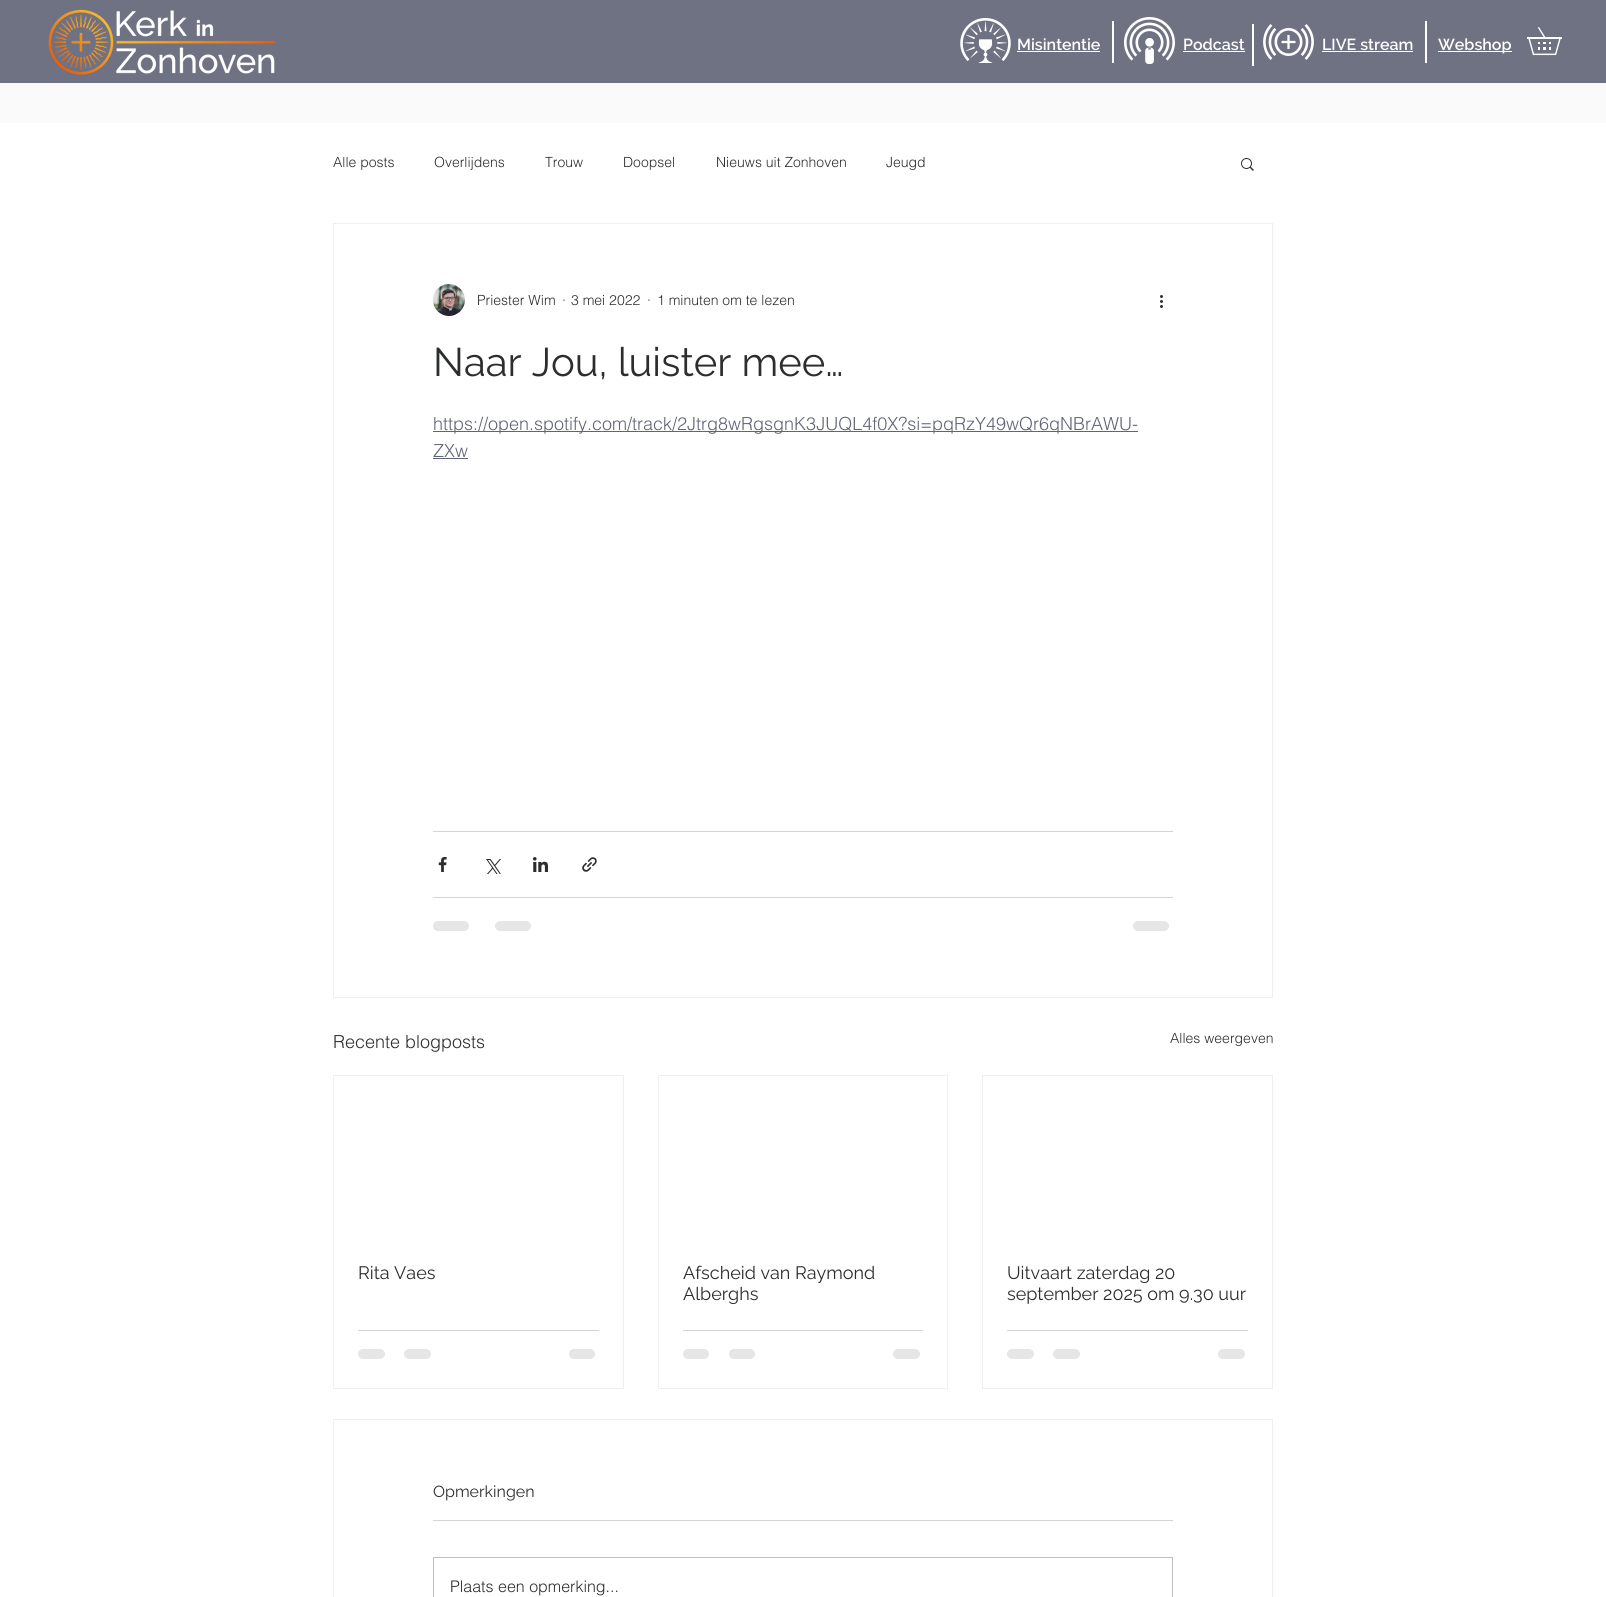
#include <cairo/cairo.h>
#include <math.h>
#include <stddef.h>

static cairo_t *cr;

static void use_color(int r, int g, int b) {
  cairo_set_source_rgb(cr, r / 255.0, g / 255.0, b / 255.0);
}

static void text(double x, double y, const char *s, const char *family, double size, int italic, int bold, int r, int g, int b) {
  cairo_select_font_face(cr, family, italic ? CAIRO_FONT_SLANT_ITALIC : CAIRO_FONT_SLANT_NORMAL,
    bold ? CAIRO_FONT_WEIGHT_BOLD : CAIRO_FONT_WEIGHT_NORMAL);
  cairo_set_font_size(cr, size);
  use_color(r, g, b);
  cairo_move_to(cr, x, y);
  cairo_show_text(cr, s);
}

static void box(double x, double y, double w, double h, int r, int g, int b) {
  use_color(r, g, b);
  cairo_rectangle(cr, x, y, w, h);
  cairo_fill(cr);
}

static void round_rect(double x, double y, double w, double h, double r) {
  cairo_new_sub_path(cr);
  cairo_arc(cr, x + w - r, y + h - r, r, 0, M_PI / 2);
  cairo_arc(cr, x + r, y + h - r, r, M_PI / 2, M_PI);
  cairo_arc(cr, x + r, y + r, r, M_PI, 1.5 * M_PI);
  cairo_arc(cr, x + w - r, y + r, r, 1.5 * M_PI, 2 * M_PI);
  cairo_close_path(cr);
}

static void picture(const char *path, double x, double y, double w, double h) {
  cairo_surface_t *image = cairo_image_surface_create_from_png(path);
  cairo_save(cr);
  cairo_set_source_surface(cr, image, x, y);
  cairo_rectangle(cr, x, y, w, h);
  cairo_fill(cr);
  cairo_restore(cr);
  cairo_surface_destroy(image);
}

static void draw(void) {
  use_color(255, 255, 255);
  cairo_paint(cr);
  box(0, 0, 1606, 83, 111, 114, 131);
  picture("img_01.png", 48, 9, 227, 66);
  picture("img_02.png", 960, 18, 51, 45);
  box(1017, 51, 83, 1, 255, 255, 255);
  box(1112, 21, 2, 42, 255, 255, 255);
  picture("img_03.png", 1124, 17, 51, 47);
  box(1183, 51, 62, 1, 255, 255, 255);
  box(1252, 24, 2, 42, 255, 255, 255);
  picture("img_04.png", 1263, 24, 51, 36);
  box(1322, 51, 91, 1, 255, 255, 255);
  box(1425, 21, 2, 42, 255, 255, 255);
  box(1438, 51, 74, 1, 255, 255, 255);
  picture("img_05.png", 1527, 27, 35, 29);
  box(0, 83, 1606, 40, 250, 250, 250);
  picture("img_06.png", 1241, 158, 13, 13);
  cairo_rectangle(cr, 333.5, 223.5, 939, 774);
  use_color(239, 239, 239);
  cairo_set_line_width(cr, 1);
  cairo_stroke(cr);
  picture("img_07.png", 433, 284, 32, 32);
  picture("img_08.png", 1160, 295, 3, 13);
  box(433, 431, 705, 1, 97, 100, 117);
  box(433, 458, 35, 1, 97, 100, 117);
  box(433, 831, 740, 1, 213, 213, 213);
  picture("img_09.png", 438, 857, 9, 15);
  picture("img_10.png", 486, 859, 15, 15);
  picture("img_11.png", 533, 857, 15, 15);
  picture("img_12.png", 582, 857, 15, 15);
  box(433, 897, 740, 1, 213, 213, 213);
  use_color(230, 230, 230);
  round_rect(433, 921, 36, 10, 5);
  cairo_fill(cr);
  round_rect(495, 921, 36, 10, 5);
  cairo_fill(cr);
  round_rect(1133, 921, 36, 10, 5);
  cairo_fill(cr);
  cairo_rectangle(cr, 333.5, 1075.5, 290, 313);
  use_color(239, 239, 239);
  cairo_stroke(cr);
  box(358, 1330, 241, 1, 213, 213, 213);
  use_color(230, 230, 230);
  round_rect(358, 1349, 27, 10, 5);
  cairo_fill(cr);
  round_rect(404, 1349, 27, 10, 5);
  cairo_fill(cr);
  round_rect(569, 1349, 26, 10, 5);
  cairo_fill(cr);
  cairo_rectangle(cr, 658.5, 1075.5, 289, 313);
  use_color(239, 239, 239);
  cairo_stroke(cr);
  box(683, 1330, 240, 1, 213, 213, 213);
  use_color(230, 230, 230);
  round_rect(683, 1349, 26, 10, 5);
  cairo_fill(cr);
  round_rect(729, 1349, 26, 10, 5);
  cairo_fill(cr);
  round_rect(893, 1349, 27, 10, 5);
  cairo_fill(cr);
  cairo_rectangle(cr, 982.5, 1075.5, 290, 313);
  use_color(239, 239, 239);
  cairo_stroke(cr);
  box(1007, 1330, 241, 1, 213, 213, 213);
  use_color(230, 230, 230);
  round_rect(1007, 1349, 27, 10, 5);
  cairo_fill(cr);
  round_rect(1053, 1349, 27, 10, 5);
  cairo_fill(cr);
  round_rect(1218, 1349, 27, 10, 5);
  cairo_fill(cr);
  cairo_rectangle(cr, 333.5, 1419.5, 939, 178);
  use_color(239, 239, 239);
  cairo_stroke(cr);
  box(433, 1520, 740, 1, 213, 213, 213);
  cairo_rectangle(cr, 433.5, 1557.5, 739, 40);
  use_color(192, 192, 192);
  cairo_stroke(cr);
  text(1017, 50, "Misintentie", "Raleway SemiBold", 16, 0, 0, 255, 255, 255);
  text(1183, 50, "Podcast", "Raleway SemiBold", 16, 0, 0, 255, 255, 255);
  text(1322, 50, "LIVE stream", "Raleway SemiBold", 16, 0, 0, 255, 255, 255);
  text(1438, 50, "Webshop", "Raleway SemiBold", 16, 0, 0, 255, 255, 255);
  text(333, 167, "Alle posts", "helvetica Light", 14, 0, 0, 44, 45, 46);
  text(434, 167, "Overlijdens", "helvetica Light", 14, 0, 0, 44, 45, 46);
  text(545, 167, "Trouw", "helvetica Light", 14, 0, 0, 44, 45, 46);
  text(623, 167, "Doopsel", "helvetica Light", 14, 0, 0, 44, 45, 46);
  text(716, 167, "Nieuws uit Zonhoven", "helvetica Light", 14, 0, 0, 44, 45, 46);
  text(886, 167, "Jeugd", "helvetica Light", 14, 0, 0, 44, 45, 46);
  text(477, 305, "Priester Wim", "helvetica Light", 14, 0, 0, 44, 45, 46);
  text(562, 305, "·", "helvetica Light", 14, 0, 0, 44, 45, 46);
  text(571, 305, "3 mei 2022", "helvetica Light", 14, 0, 0, 44, 45, 46);
  text(647, 305, "·", "helvetica Light", 14, 0, 0, 44, 45, 46);
  text(657, 305, "1 minuten om te lezen", "helvetica Light", 14, 0, 0, 44, 45, 46);
  text(433, 376, "Naar Jou, luister mee…", "Raleway", 40, 0, 0, 44, 45, 46);
  text(433, 430, "https://open.spotify.com/track/2Jtrg8wRgsgnK3JUQL4f0X?si=pqRzY49wQr6qNBrAWU-", "helvetica Light", 18, 0, 0, 97, 100, 117);
  text(433, 457, "ZXw", "helvetica Light", 18, 0, 0, 97, 100, 117);
  text(333, 1048, "Recente blogposts", "helvetica Light", 18, 0, 0, 44, 45, 46);
  text(1170, 1043, "Alles weergeven", "helvetica Light", 14, 0, 0, 44, 45, 46);
  text(358, 1279, "Rita Vaes", "Raleway", 18, 0, 0, 44, 45, 46);
  text(683, 1279, "Afscheid van Raymond", "Raleway", 18, 0, 0, 44, 45, 46);
  text(683, 1300, "Alberghs", "Raleway", 18, 0, 0, 44, 45, 46);
  text(1007, 1279, "Uitvaart zaterdag 20", "Raleway", 18, 0, 0, 44, 45, 46);
  text(1007, 1300, "september 2025 om 9.30 uur", "Raleway", 18, 0, 0, 44, 45, 46);
  text(433, 1497, "Opmerkingen", "Raleway", 16, 0, 0, 44, 45, 46);
  text(450, 1592, "Plaats een opmerking...", "helvetica Light", 16, 0, 0, 44, 45, 46);
}

int main(void) {
  cairo_surface_t *surface = cairo_image_surface_create(CAIRO_FORMAT_RGB24, 1606, 1597);
  cr = cairo_create(surface);
  cairo_font_options_t *options = cairo_font_options_create();
  cairo_font_options_set_hint_metrics(options, CAIRO_HINT_METRICS_OFF);
  cairo_font_options_set_hint_style(options, CAIRO_HINT_STYLE_NONE);
  cairo_set_font_options(cr, options);
  cairo_set_miter_limit(cr, 4);
  draw();
  cairo_surface_write_to_png(surface, "out.png");
  cairo_font_options_destroy(options);
  cairo_destroy(cr);
  cairo_surface_destroy(surface);
  return 0;
}
